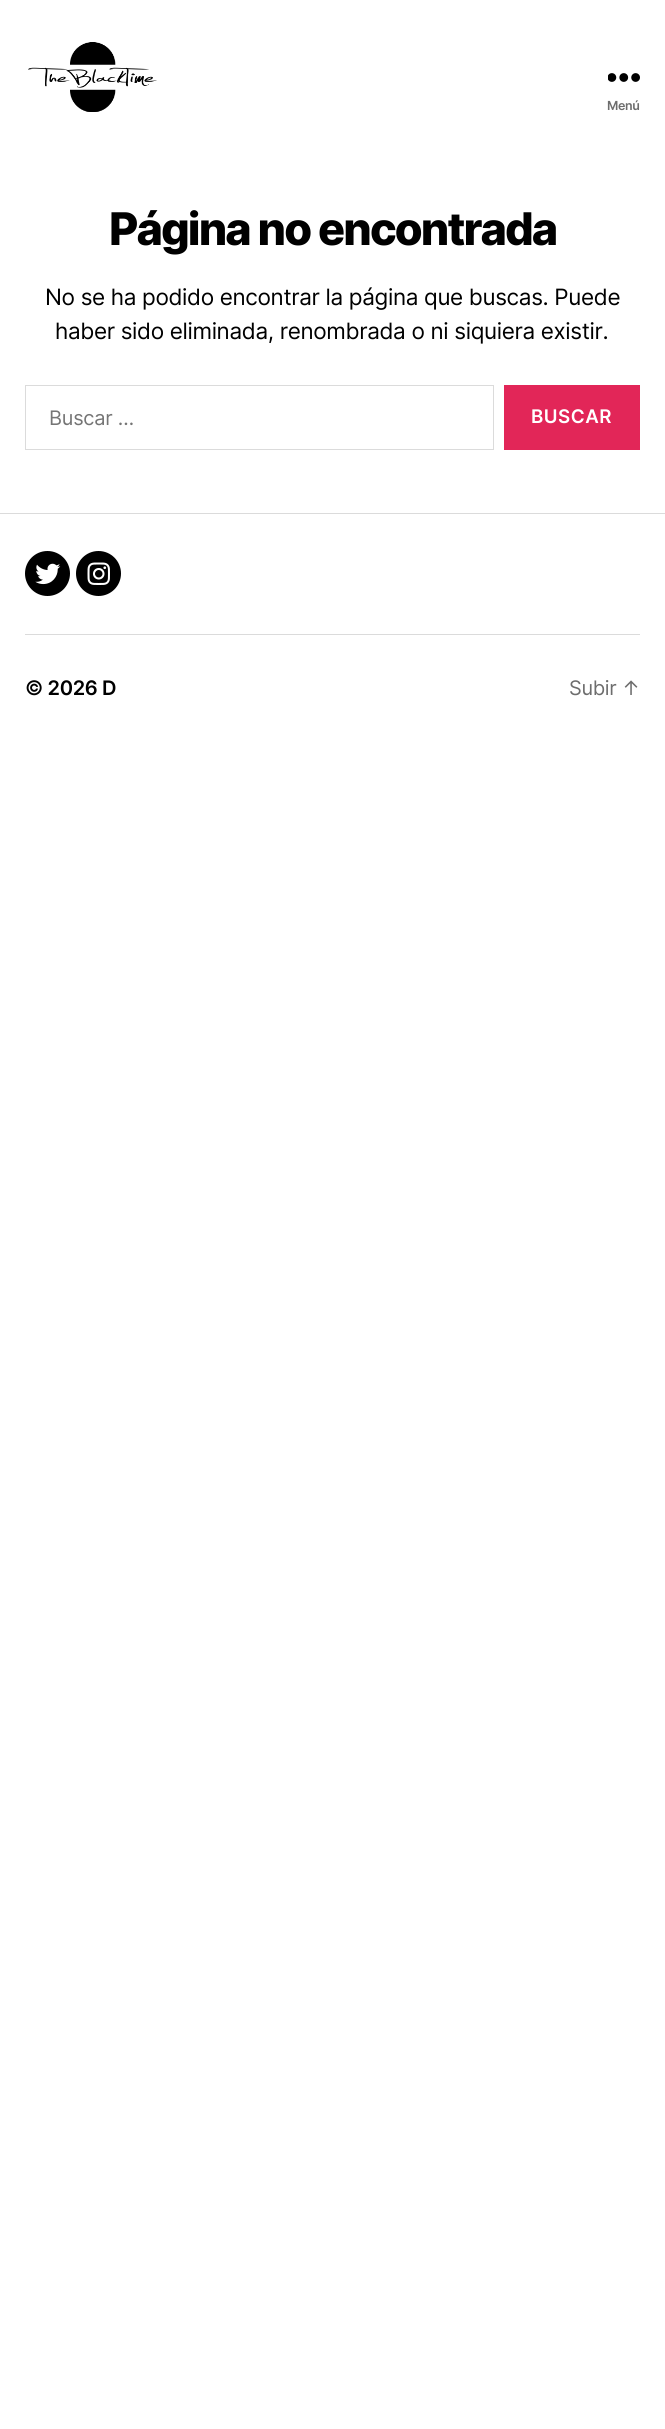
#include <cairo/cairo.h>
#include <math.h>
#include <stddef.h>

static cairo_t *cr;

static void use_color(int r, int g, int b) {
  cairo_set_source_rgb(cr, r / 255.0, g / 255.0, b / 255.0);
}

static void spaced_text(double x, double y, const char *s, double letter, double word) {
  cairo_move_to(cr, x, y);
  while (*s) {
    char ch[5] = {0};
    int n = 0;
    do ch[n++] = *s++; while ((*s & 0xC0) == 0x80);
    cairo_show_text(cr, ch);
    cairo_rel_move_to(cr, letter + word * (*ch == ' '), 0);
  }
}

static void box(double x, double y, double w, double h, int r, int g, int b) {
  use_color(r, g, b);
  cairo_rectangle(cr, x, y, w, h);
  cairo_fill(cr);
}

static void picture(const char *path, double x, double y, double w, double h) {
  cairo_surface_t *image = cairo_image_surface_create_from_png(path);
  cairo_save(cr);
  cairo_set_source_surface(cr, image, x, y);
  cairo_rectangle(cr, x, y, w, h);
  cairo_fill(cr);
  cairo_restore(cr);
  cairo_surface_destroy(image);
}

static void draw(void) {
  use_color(255, 255, 255);
  cairo_paint(cr);
  picture("img_01.png", 28, 42, 129, 70);
  picture("img_02.png", 608, 73, 32, 9);
  cairo_rectangle(cr, 25.5, 385.5, 468, 64);
  use_color(219, 219, 219);
  cairo_set_line_width(cr, 1);
  cairo_stroke(cr);
  box(504, 385, 136, 65, 226, 38, 88);
  box(0, 513, 665, 1, 219, 219, 219);
  box(25, 634, 615, 1, 219, 219, 219);
  use_color(0, 0, 0);
  cairo_arc(cr, 47.5, 573.5, 22.5, 0, 2 * M_PI);
  cairo_fill(cr);
  picture("img_03.png", 35, 563, 26, 22);
  cairo_arc(cr, 98.5, 573.5, 22.5, 0, 2 * M_PI);
  cairo_fill(cr);
  picture("img_04.png", 87, 562, 23, 23);
  cairo_select_font_face(cr, "Inter SemiBold", CAIRO_FONT_SLANT_NORMAL, CAIRO_FONT_WEIGHT_NORMAL);
  cairo_set_font_size(cr, 12.5);
  use_color(109, 109, 109);
  spaced_text(607, 110, "Menú", -0.35, 0);
  cairo_select_font_face(cr, "Inter ExtraBold", CAIRO_FONT_SLANT_NORMAL, CAIRO_FONT_WEIGHT_NORMAL);
  cairo_set_font_size(cr, 45);
  use_color(0, 0, 0);
  spaced_text(109, 245, "Página no encontrada", -1.9, 0);
  cairo_select_font_face(cr, "Inter", CAIRO_FONT_SLANT_NORMAL, CAIRO_FONT_WEIGHT_NORMAL);
  cairo_set_font_size(cr, 22.5);
  spaced_text(45, 305, "No se ha podido encontrar la página que buscas. Puede", -0.35, 0);
  spaced_text(55, 339, "haber sido eliminada, renombrada o ni siquiera existir.", -0.35, 0);
  cairo_set_font_size(cr, 20);
  use_color(117, 117, 117);
  spaced_text(49, 425, "Buscar …", -0.25, 0);
  cairo_select_font_face(cr, "Inter SemiBold", CAIRO_FONT_SLANT_NORMAL, CAIRO_FONT_WEIGHT_NORMAL);
  cairo_set_font_size(cr, 18.75);
  use_color(255, 255, 255);
  spaced_text(531, 423, "BUSCAR", 0.5, 0);
  cairo_set_font_size(cr, 20);
  use_color(0, 0, 0);
  spaced_text(25, 695, "© 2026 D", -0.35, 0);
  cairo_select_font_face(cr, "Inter", CAIRO_FONT_SLANT_NORMAL, CAIRO_FONT_WEIGHT_NORMAL);
  use_color(109, 109, 109);
  spaced_text(569, 695, "Subir ↑", -0.35, 0);
}

int main(void) {
  cairo_surface_t *surface = cairo_image_surface_create(CAIRO_FORMAT_RGB24, 665, 2429);
  cr = cairo_create(surface);
  cairo_font_options_t *options = cairo_font_options_create();
  cairo_font_options_set_hint_metrics(options, CAIRO_HINT_METRICS_OFF);
  cairo_font_options_set_hint_style(options, CAIRO_HINT_STYLE_NONE);
  cairo_set_font_options(cr, options);
  cairo_set_miter_limit(cr, 4);
  draw();
  cairo_surface_write_to_png(surface, "out.png");
  cairo_font_options_destroy(options);
  cairo_destroy(cr);
  cairo_surface_destroy(surface);
  return 0;
}
